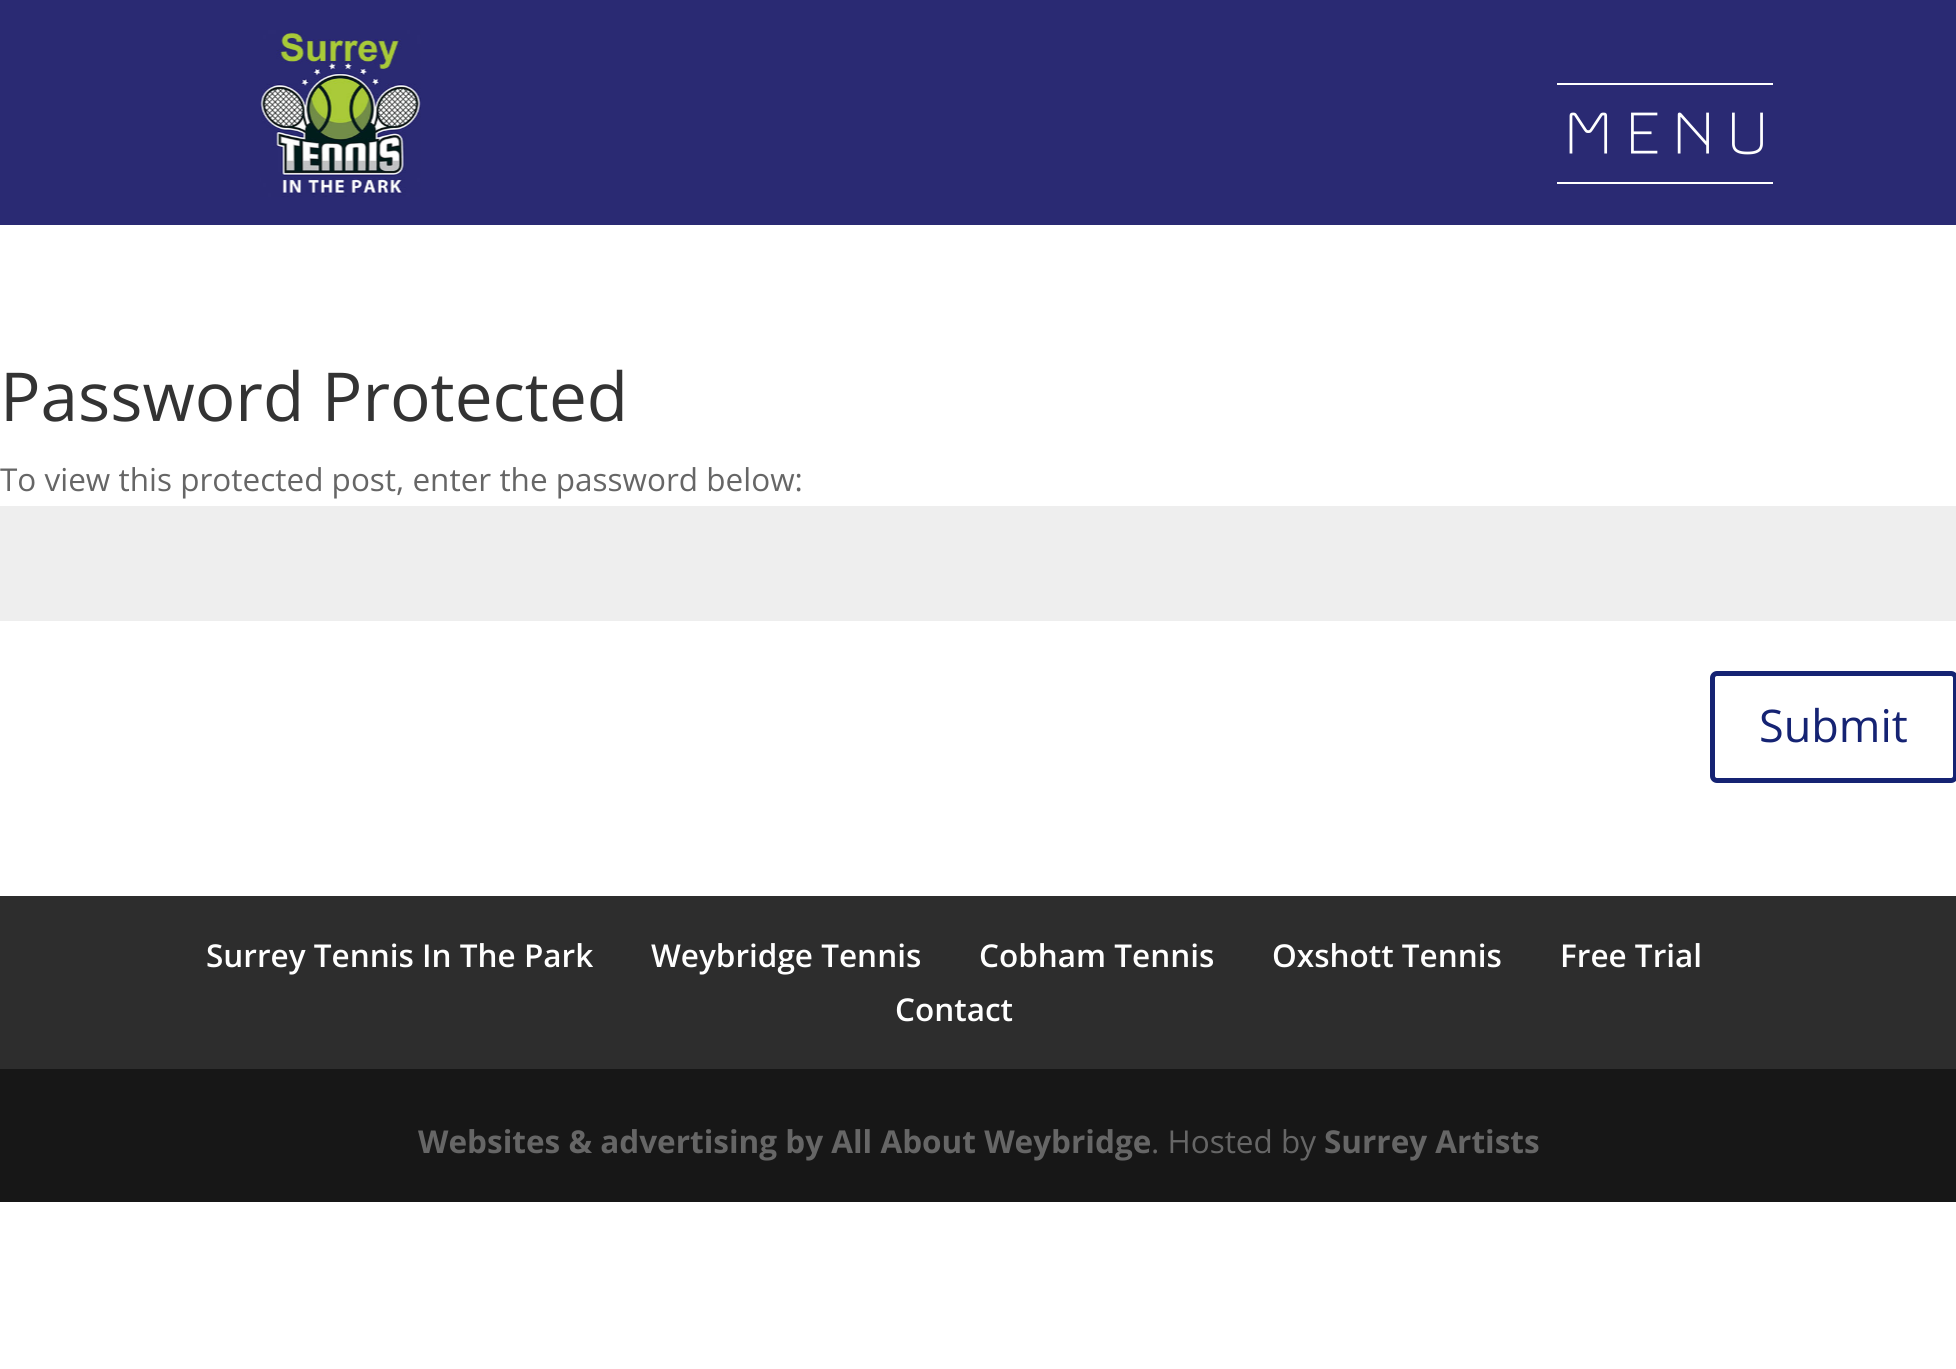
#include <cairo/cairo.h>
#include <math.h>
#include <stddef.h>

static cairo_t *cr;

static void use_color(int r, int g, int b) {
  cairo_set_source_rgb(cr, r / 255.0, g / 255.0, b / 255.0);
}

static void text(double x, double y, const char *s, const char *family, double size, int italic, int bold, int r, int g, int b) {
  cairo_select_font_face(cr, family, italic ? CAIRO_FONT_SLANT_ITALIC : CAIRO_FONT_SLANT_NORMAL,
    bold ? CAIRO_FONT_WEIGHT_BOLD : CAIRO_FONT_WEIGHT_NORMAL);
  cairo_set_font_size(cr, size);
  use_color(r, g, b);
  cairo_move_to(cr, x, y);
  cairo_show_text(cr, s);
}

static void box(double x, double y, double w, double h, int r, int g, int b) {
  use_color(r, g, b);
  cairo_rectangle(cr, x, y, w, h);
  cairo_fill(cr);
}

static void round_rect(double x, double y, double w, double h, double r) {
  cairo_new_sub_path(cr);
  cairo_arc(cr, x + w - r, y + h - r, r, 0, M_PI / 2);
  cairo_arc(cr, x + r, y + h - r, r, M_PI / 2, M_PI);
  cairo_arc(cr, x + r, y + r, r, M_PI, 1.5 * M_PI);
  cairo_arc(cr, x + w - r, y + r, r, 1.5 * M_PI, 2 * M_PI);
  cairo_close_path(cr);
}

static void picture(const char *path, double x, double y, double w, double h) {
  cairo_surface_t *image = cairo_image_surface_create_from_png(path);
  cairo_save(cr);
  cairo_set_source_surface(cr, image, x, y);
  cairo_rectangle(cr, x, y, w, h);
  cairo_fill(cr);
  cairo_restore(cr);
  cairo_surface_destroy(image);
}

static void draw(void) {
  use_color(255, 255, 255);
  cairo_paint(cr);
  box(0, 0, 1956, 225, 42, 42, 115);
  picture("img_01.png", 260, 30, 161, 167);
  box(1557, 83, 216, 2, 255, 255, 255);
  box(1557, 182, 216, 2, 255, 255, 255);
  box(0, 506, 1956, 115, 238, 238, 238);
  round_rect(1712.5, 673.5, 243, 107, 4.5);
  use_color(21, 35, 115);
  cairo_set_line_width(cr, 5);
  cairo_stroke(cr);
  box(0, 896, 1956, 173, 45, 45, 45);
  box(0, 1069, 1956, 133, 23, 23, 23);
  text(1557, 160, "menu", "Bungee Hairline", 72, 0, 1, 255, 255, 255);
  text(0, 421, "Password Protected", "Open Sans", 67.5, 0, 0, 51, 51, 51);
  text(0, 491, "To view this protected post, enter the password below:", "Open Sans", 31.5, 0, 0, 102, 102, 102);
  text(1759, 742, "Submit", "Open Sans", 45, 0, 0, 21, 35, 115);
  text(206, 967, "Surrey Tennis In The Park", "Open Sans SemiBold", 31.5, 0, 0, 255, 255, 255);
  text(651, 967, "Weybridge Tennis", "Open Sans SemiBold", 31.5, 0, 0, 255, 255, 255);
  text(979, 967, "Cobham Tennis", "Open Sans SemiBold", 31.5, 0, 0, 255, 255, 255);
  text(1272, 967, "Oxshott Tennis", "Open Sans SemiBold", 31.5, 0, 0, 255, 255, 255);
  text(1560, 967, "Free Trial", "Open Sans SemiBold", 31.5, 0, 0, 255, 255, 255);
  text(895, 1021, "Contact", "Open Sans SemiBold", 31.5, 0, 0, 255, 255, 255);
  text(418, 1153, "Websites & advertising by All About Weybridge", "Open Sans", 31.5, 0, 1, 102, 102, 102);
  text(1151, 1153, ". Hosted by", "Open Sans", 31.5, 0, 0, 102, 102, 102);
  text(1324, 1153, "Surrey Artists", "Open Sans", 31.5, 0, 1, 102, 102, 102);
}

int main(void) {
  cairo_surface_t *surface = cairo_image_surface_create(CAIRO_FORMAT_RGB24, 1956, 1369);
  cr = cairo_create(surface);
  cairo_font_options_t *options = cairo_font_options_create();
  cairo_font_options_set_hint_metrics(options, CAIRO_HINT_METRICS_OFF);
  cairo_font_options_set_hint_style(options, CAIRO_HINT_STYLE_NONE);
  cairo_set_font_options(cr, options);
  cairo_set_miter_limit(cr, 4);
  draw();
  cairo_surface_write_to_png(surface, "out.png");
  cairo_font_options_destroy(options);
  cairo_destroy(cr);
  cairo_surface_destroy(surface);
  return 0;
}
